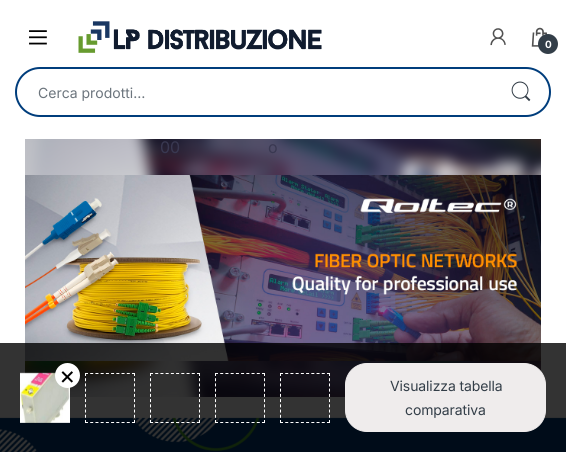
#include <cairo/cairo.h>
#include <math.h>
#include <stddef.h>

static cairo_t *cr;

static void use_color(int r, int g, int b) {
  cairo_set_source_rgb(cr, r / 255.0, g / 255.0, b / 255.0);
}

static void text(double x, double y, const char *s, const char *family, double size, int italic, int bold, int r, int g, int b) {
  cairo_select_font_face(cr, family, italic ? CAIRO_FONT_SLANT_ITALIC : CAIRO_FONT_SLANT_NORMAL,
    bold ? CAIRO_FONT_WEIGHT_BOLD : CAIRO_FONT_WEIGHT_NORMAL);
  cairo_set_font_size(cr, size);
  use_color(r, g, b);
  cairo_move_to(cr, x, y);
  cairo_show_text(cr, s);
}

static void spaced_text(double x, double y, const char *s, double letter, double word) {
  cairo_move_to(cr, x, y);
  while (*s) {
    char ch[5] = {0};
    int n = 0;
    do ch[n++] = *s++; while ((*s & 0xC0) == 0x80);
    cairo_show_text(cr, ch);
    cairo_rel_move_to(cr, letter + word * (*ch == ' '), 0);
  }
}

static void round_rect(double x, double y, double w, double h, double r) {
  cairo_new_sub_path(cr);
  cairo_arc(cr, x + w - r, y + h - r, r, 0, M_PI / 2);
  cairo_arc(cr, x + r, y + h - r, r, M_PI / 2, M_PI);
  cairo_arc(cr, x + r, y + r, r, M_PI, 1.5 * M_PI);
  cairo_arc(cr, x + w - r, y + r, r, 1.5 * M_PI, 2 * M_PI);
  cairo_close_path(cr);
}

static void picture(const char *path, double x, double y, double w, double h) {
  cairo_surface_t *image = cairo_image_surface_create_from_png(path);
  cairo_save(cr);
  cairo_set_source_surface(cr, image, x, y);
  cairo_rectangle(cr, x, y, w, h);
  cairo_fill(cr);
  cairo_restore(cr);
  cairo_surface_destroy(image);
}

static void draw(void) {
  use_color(255, 255, 255);
  cairo_paint(cr);
  picture("img_01.png", 29, 30, 18, 15);
  picture("img_02.png", 78, 21, 244, 32);
  picture("img_03.png", 490, 28, 16, 18);
  picture("img_04.png", 531, 27, 17, 20);
  use_color(51, 62, 72);
  cairo_arc(cr, 548, 44, 10, 0, 2 * M_PI);
  cairo_fill(cr);
  round_rect(16, 68, 534, 48, 24);
  use_color(0, 61, 124);
  cairo_stroke(cr);
  picture("img_05.png", 511, 81, 20, 21);
  picture("img_06.png", 25, 139, 516, 258);
  picture("img_07.png", 25, 175, 516, 186);
  picture("img_08.png", 0, 417, 566, 35);
  cairo_set_source_rgba(cr, 0, 0, 0, 0.8);
  cairo_rectangle(cr, 0, 343, 566, 109);
  cairo_fill(cr);
  picture("img_09.png", 20, 372, 50, 51);
  use_color(255, 255, 255);
  cairo_arc(cr, 67.5, 375.5, 12.5, 0, 2 * M_PI);
  cairo_fill(cr);
  cairo_new_path(cr);
  cairo_move_to(cr, 85, 373.5);
  cairo_line_to(cr, 135, 373.5);
  cairo_move_to(cr, 134.5, 373);
  cairo_line_to(cr, 134.5, 423);
  cairo_move_to(cr, 85, 422.5);
  cairo_line_to(cr, 135, 422.5);
  cairo_move_to(cr, 85.5, 373);
  cairo_line_to(cr, 85.5, 423);
  cairo_set_line_width(cr, 1);
  cairo_set_dash(cr, (double[]){3, 2.22}, 2, 0);
  cairo_stroke(cr);
  cairo_new_path(cr);
  cairo_move_to(cr, 150, 373.5);
  cairo_line_to(cr, 200, 373.5);
  cairo_move_to(cr, 199.5, 373);
  cairo_line_to(cr, 199.5, 423);
  cairo_move_to(cr, 150, 422.5);
  cairo_line_to(cr, 200, 422.5);
  cairo_move_to(cr, 150.5, 373);
  cairo_line_to(cr, 150.5, 423);
  cairo_stroke(cr);
  cairo_new_path(cr);
  cairo_move_to(cr, 215, 373.5);
  cairo_line_to(cr, 265, 373.5);
  cairo_move_to(cr, 264.5, 373);
  cairo_line_to(cr, 264.5, 423);
  cairo_move_to(cr, 215, 422.5);
  cairo_line_to(cr, 265, 422.5);
  cairo_move_to(cr, 215.5, 373);
  cairo_line_to(cr, 215.5, 423);
  cairo_stroke(cr);
  cairo_new_path(cr);
  cairo_move_to(cr, 280, 373.5);
  cairo_line_to(cr, 330, 373.5);
  cairo_move_to(cr, 329.5, 373);
  cairo_line_to(cr, 329.5, 423);
  cairo_move_to(cr, 280, 422.5);
  cairo_line_to(cr, 330, 422.5);
  cairo_move_to(cr, 280.5, 373);
  cairo_line_to(cr, 280.5, 423);
  cairo_stroke(cr);
  use_color(239, 236, 236);
  round_rect(345.5, 363.5, 200, 68, 21.5);
  cairo_fill_preserve(cr);
  cairo_set_dash(cr, NULL, 0, 0);
  cairo_stroke(cr);
  cairo_select_font_face(cr, "Inter", CAIRO_FONT_SLANT_NORMAL, CAIRO_FONT_WEIGHT_BOLD);
  cairo_set_font_size(cr, 10);
  use_color(255, 255, 255);
  spaced_text(545, 48, "0", -0.1, 0);
  text(38, 98, "Cerca prodotti…", "Inter", 14, 0, 0, 108, 117, 125);
  cairo_set_font_size(cr, 16);
  use_color(57, 56, 81);
  spaced_text(160, 153, "00", -0.1, -1);
  spaced_text(268, 153, "o", -0.1, -1);
  cairo_set_font_size(cr, 25);
  use_color(0, 0, 0);
  spaced_text(59, 384, "×", -0.1, 0);
  cairo_set_font_size(cr, 14);
  use_color(51, 62, 72);
  spaced_text(390, 391, "Visualizza tabella", -0.1, 0);
  spaced_text(405, 415, "comparativa", -0.1, 0);
}

int main(void) {
  cairo_surface_t *surface = cairo_image_surface_create(CAIRO_FORMAT_RGB24, 566, 452);
  cr = cairo_create(surface);
  cairo_font_options_t *options = cairo_font_options_create();
  cairo_font_options_set_hint_metrics(options, CAIRO_HINT_METRICS_OFF);
  cairo_font_options_set_hint_style(options, CAIRO_HINT_STYLE_NONE);
  cairo_set_font_options(cr, options);
  cairo_set_miter_limit(cr, 4);
  draw();
  cairo_surface_write_to_png(surface, "out.png");
  cairo_font_options_destroy(options);
  cairo_destroy(cr);
  cairo_surface_destroy(surface);
  return 0;
}
